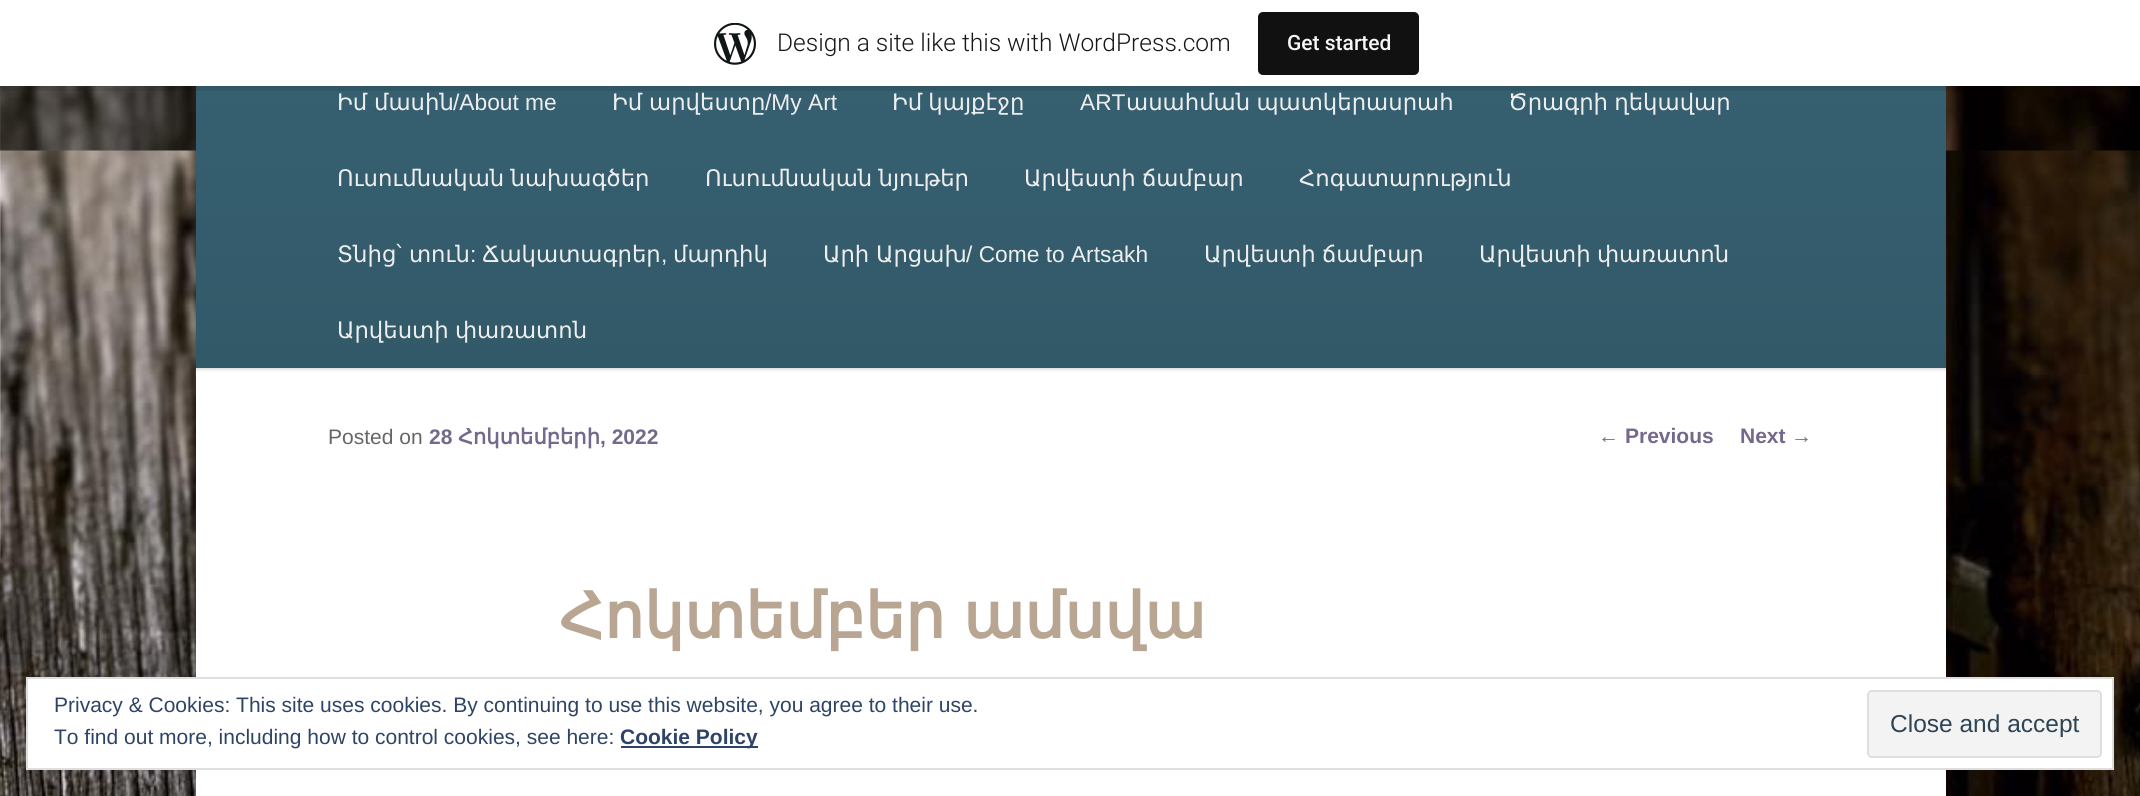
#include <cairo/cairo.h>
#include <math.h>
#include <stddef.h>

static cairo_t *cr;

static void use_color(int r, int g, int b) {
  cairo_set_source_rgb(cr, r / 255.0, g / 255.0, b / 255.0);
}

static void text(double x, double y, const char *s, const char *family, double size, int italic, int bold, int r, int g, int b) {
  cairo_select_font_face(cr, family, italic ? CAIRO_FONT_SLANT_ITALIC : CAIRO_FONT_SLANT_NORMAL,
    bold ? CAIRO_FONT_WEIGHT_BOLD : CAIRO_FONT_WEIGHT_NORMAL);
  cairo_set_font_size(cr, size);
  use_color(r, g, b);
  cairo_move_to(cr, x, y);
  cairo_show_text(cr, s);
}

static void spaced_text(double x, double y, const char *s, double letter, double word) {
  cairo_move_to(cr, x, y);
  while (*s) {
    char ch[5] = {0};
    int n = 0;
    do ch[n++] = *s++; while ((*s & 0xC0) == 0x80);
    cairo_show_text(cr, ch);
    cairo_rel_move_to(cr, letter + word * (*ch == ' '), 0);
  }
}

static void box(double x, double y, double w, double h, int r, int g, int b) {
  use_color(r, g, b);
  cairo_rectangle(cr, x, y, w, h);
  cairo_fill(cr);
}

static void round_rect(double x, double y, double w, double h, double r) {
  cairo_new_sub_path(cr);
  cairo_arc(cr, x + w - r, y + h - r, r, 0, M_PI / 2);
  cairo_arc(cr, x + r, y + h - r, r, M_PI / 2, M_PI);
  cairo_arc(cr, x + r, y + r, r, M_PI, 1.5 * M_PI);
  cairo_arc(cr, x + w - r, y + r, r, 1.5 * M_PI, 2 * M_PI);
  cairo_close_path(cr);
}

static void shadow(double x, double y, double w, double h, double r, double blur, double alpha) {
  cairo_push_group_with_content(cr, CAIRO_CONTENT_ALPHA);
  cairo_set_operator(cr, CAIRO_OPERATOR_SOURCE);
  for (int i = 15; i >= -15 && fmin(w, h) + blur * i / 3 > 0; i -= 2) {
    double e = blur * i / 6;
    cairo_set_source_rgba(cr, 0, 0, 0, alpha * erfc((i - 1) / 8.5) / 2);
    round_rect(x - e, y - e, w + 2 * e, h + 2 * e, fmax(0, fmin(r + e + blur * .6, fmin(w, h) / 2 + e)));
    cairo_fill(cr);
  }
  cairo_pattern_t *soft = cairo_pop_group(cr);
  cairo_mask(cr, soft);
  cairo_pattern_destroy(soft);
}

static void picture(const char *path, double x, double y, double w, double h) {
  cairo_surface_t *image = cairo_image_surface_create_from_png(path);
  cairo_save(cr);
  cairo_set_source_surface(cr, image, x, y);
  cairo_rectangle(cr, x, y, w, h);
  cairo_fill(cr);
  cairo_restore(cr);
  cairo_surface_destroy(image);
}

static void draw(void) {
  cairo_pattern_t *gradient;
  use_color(255, 255, 255);
  cairo_paint(cr);
  picture("img_01.png", 0, 86, 2140, 710);
  box(196, 368, 1750, 428, 255, 255, 255);
  use_color(0, 0, 0);
  shadow(196, 67, 1750, 302, 0, 2, 0.2);
  gradient = cairo_pattern_create_linear(1071, 65, 1071, 368);
  cairo_pattern_add_color_stop_rgba(gradient, 0, 0.212, 0.376, 0.443, 1);
  cairo_pattern_add_color_stop_rgba(gradient, 1, 0.196, 0.349, 0.408, 1);
  cairo_set_source(cr, gradient);
  cairo_pattern_destroy(gradient);
  cairo_rectangle(cr, 196, 86, 1750, 282);
  cairo_fill(cr);
  use_color(0, 0, 0);
  shadow(0, 2, 2140, 86, 0, 2, 0.05);
  cairo_set_source_rgba(cr, 0, 0, 0, 0.08);
  cairo_new_path(cr);
  cairo_move_to(cr, 2, 86);
  cairo_line_to(cr, 2, 91);
  cairo_line_to(cr, 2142, 91);
  cairo_line_to(cr, 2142, 5);
  cairo_line_to(cr, 2140, 5);
  cairo_line_to(cr, 2140, 86);
  cairo_close_path(cr);
  cairo_fill(cr);
  box(0, 0, 2140, 86, 255, 255, 255);
  picture("img_02.png", 714, 23, 42, 42);
  use_color(17, 17, 17);
  round_rect(1258, 12, 161, 63, 5);
  cairo_fill(cr);
  use_color(255, 255, 255);
  cairo_rectangle(cr, 27, 678, 2086, 91);
  cairo_fill_preserve(cr);
  use_color(222, 222, 222);
  cairo_stroke(cr);
  box(621, 746, 137, 2, 46, 68, 103);
  use_color(243, 243, 243);
  round_rect(1868, 691, 233, 66, 4);
  cairo_fill_preserve(cr);
  use_color(222, 222, 222);
  cairo_stroke(cr);
  text(777, 51, "Design a site like this with WordPress.com", "Roboto Light", 24.5, 0, 0, 23, 23, 23);
  text(1287, 50, "Get started", "Roboto Medium", 21, 0, 0, 246, 247, 247);
  text(337, 110, "Իմ", "DejaVu Sans", 22.75, 0, 0, 238, 238, 238);
  text(374, 110, "մասին", "DejaVu Sans", 22.75, 0, 0, 238, 238, 238);
  text(453, 110, "/About me", "Liberation Sans", 22.75, 0, 0, 238, 238, 238);
  text(612, 110, "Իմ", "DejaVu Sans", 22.75, 0, 0, 238, 238, 238);
  text(649, 110, "արվեստը", "DejaVu Sans", 22.75, 0, 0, 238, 238, 238);
  text(765, 110, "/My Art", "Liberation Sans", 22.75, 0, 0, 238, 238, 238);
  cairo_select_font_face(cr, "DejaVu Sans", CAIRO_FONT_SLANT_NORMAL, CAIRO_FONT_WEIGHT_NORMAL);
  spaced_text(892, 110, "Իմ կայքէջը", 0, -1);
  text(1080, 110, "ART", "Liberation Sans", 22.75, 0, 0, 238, 238, 238);
  cairo_select_font_face(cr, "DejaVu Sans", CAIRO_FONT_SLANT_NORMAL, CAIRO_FONT_WEIGHT_NORMAL);
  spaced_text(1126, 110, "ասահման պատկերասրահ", 0, -1);
  spaced_text(1508, 110, "Ծրագրի ղեկավար", 0, -1);
  spaced_text(337, 186, "Ուսումնական նախագծեր", 0, -1);
  spaced_text(705, 186, "Ուսումնական նյութեր", 0, -1);
  spaced_text(1024, 186, "Արվեստի ճամբար", 0, -1);
  text(1299, 186, "Հոգատարություն", "DejaVu Sans", 22.75, 0, 0, 238, 238, 238);
  text(337, 262, "Տնից՝ տուն", "DejaVu Sans", 22.75, 0, 0, 238, 238, 238);
  text(470, 262, ":", "Liberation Sans", 22.75, 0, 0, 238, 238, 238);
  text(482, 262, "Ճակատագրեր", "DejaVu Sans", 22.75, 0, 0, 238, 238, 238);
  text(661, 262, ",", "Liberation Sans", 22.75, 0, 0, 238, 238, 238);
  text(673, 262, "մարդիկ", "DejaVu Sans", 22.75, 0, 0, 238, 238, 238);
  text(823, 262, "Արի", "DejaVu Sans", 22.75, 0, 0, 238, 238, 238);
  text(876, 262, "Արցախ", "DejaVu Sans", 22.75, 0, 0, 238, 238, 238);
  text(966, 262, "/ Come to Artsakh", "Liberation Sans", 22.75, 0, 0, 238, 238, 238);
  cairo_select_font_face(cr, "DejaVu Sans", CAIRO_FONT_SLANT_NORMAL, CAIRO_FONT_WEIGHT_NORMAL);
  spaced_text(1204, 262, "Արվեստի ճամբար", 0, -1);
  spaced_text(1479, 262, "Արվեստի փառատոն", 0, -1);
  spaced_text(337, 338, "Արվեստի փառատոն", 0, -1);
  text(328, 444, "Posted on", "Liberation Sans", 21, 0, 0, 102, 102, 102);
  text(429, 444, "28", "Liberation Sans", 21, 0, 1, 117, 105, 139);
  text(458, 444, "Հոկտեմբերի", "DejaVu Sans", 21, 0, 1, 117, 105, 139);
  text(600, 444, ", 2022", "Liberation Sans", 21, 0, 1, 117, 105, 139);
  cairo_select_font_face(cr, "DejaVu Sans", CAIRO_FONT_SLANT_NORMAL, CAIRO_FONT_WEIGHT_BOLD);
  cairo_set_font_size(cr, 63);
  use_color(184, 166, 146);
  spaced_text(559, 638, "Հոկտեմբեր ամսվա", 0, -2);
  text(1598, 443, "←", "Liberation Sans", 21, 0, 0, 117, 105, 139);
  text(1625, 443, "Previous", "Liberation Sans", 21, 0, 1, 117, 105, 139);
  text(1740, 443, "Next", "Liberation Sans", 21, 0, 1, 117, 105, 139);
  text(1791, 443, "→", "Liberation Sans", 21, 0, 0, 117, 105, 139);
  text(54, 712, "Privacy & Cookies: This site uses cookies. By continuing to use this website, you agree to their use.", "Liberation Sans", 21, 0, 0, 46, 68, 103);
  text(54, 744, "To find out more, including how to control cookies, see here:", "Liberation Sans", 21, 0, 0, 46, 68, 103);
  text(620, 744, "Cookie Policy", "Liberation Sans", 21, 0, 1, 46, 68, 103);
  text(1890, 732, "Close and accept", "Liberation Sans", 24.5, 0, 0, 46, 68, 83);
}

int main(void) {
  cairo_surface_t *surface = cairo_image_surface_create(CAIRO_FORMAT_RGB24, 2140, 796);
  cr = cairo_create(surface);
  cairo_font_options_t *options = cairo_font_options_create();
  cairo_font_options_set_hint_metrics(options, CAIRO_HINT_METRICS_OFF);
  cairo_font_options_set_hint_style(options, CAIRO_HINT_STYLE_NONE);
  cairo_set_font_options(cr, options);
  cairo_set_miter_limit(cr, 4);
  draw();
  cairo_surface_write_to_png(surface, "out.png");
  cairo_font_options_destroy(options);
  cairo_destroy(cr);
  cairo_surface_destroy(surface);
  return 0;
}
